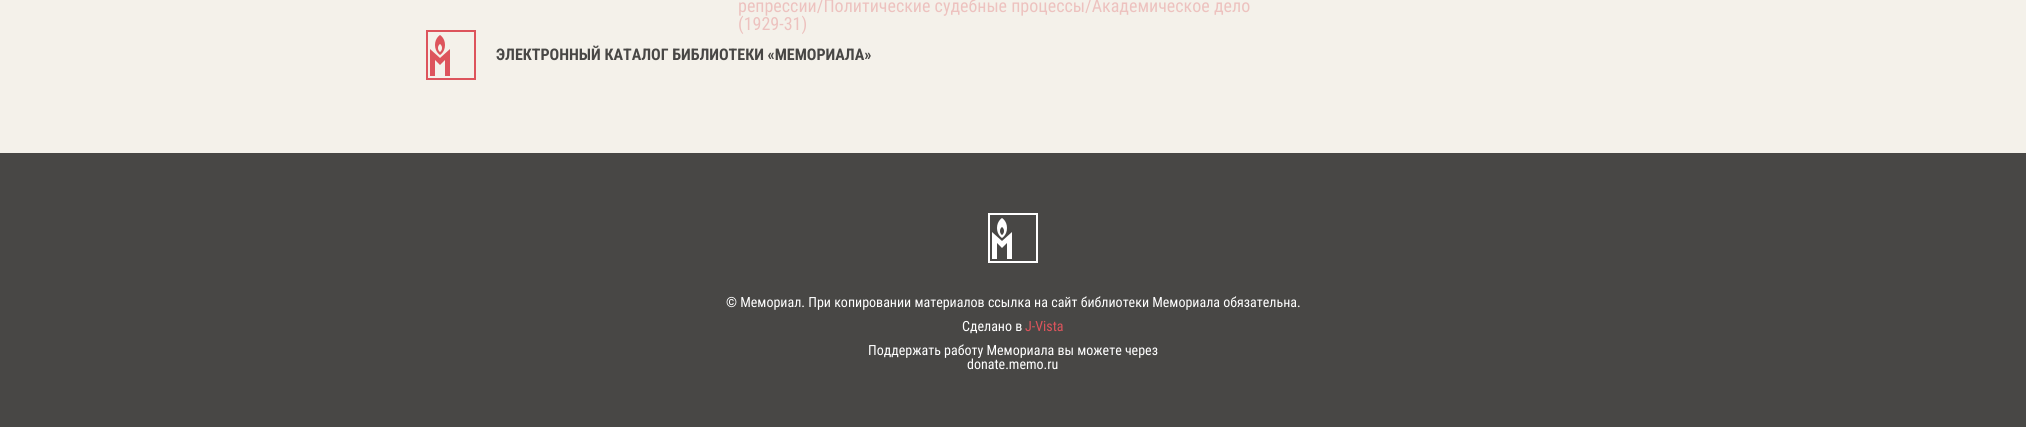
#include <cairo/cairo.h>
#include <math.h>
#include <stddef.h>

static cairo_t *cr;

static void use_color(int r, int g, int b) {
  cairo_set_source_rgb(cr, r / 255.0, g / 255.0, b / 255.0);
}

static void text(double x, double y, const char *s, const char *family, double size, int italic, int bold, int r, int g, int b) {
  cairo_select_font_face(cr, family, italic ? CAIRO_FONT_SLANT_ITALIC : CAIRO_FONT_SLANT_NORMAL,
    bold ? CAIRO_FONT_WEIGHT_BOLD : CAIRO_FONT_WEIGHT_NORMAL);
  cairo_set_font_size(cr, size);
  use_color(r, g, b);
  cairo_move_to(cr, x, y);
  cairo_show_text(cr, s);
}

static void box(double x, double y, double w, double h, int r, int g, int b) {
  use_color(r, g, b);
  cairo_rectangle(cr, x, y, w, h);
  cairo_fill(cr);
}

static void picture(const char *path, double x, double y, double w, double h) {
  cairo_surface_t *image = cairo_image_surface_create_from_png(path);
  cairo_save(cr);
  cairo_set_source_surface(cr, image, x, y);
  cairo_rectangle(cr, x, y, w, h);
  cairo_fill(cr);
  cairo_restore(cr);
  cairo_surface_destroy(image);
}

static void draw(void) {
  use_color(244, 241, 234);
  cairo_paint(cr);
  picture("img_01.png", 426, 30, 50, 50);
  box(0, 153, 2026, 274, 72, 71, 69);
  picture("img_02.png", 988, 213, 50, 50);
  text(738, 12, "репрессии/Политические судебные процессы/Академическое дело", "Roboto Condensed", 18, 0, 0, 237, 194, 191);
  text(738, 30, "(1929-31)", "Roboto Condensed", 18, 0, 0, 237, 194, 191);
  text(496, 60, "ЭЛЕКТРОННЫЙ КАТАЛОГ БИБЛИОТЕКИ «МЕМОРИАЛА»", "Roboto Condensed", 16, 0, 1, 72, 71, 69);
  text(726, 307, "© Мемориал. При копировании материалов ссылка на сайт библиотеки Мемориала обязательна.", "Roboto Condensed", 14, 0, 0, 255, 255, 255);
  text(962, 331, "Сделано в", "Roboto Condensed", 14, 0, 0, 255, 255, 255);
  text(1025, 331, "J-Vista", "Roboto Condensed", 14, 0, 0, 221, 84, 92);
  text(868, 355, "Поддержать работу Мемориала вы можете через", "Roboto Condensed", 14, 0, 0, 255, 255, 255);
  text(967, 369, "donate.memo.ru", "Roboto Condensed", 14, 0, 0, 255, 255, 255);
}

int main(void) {
  cairo_surface_t *surface = cairo_image_surface_create(CAIRO_FORMAT_RGB24, 2026, 427);
  cr = cairo_create(surface);
  cairo_font_options_t *options = cairo_font_options_create();
  cairo_font_options_set_hint_metrics(options, CAIRO_HINT_METRICS_OFF);
  cairo_font_options_set_hint_style(options, CAIRO_HINT_STYLE_NONE);
  cairo_set_font_options(cr, options);
  cairo_set_miter_limit(cr, 4);
  draw();
  cairo_surface_write_to_png(surface, "out.png");
  cairo_font_options_destroy(options);
  cairo_destroy(cr);
  cairo_surface_destroy(surface);
  return 0;
}
